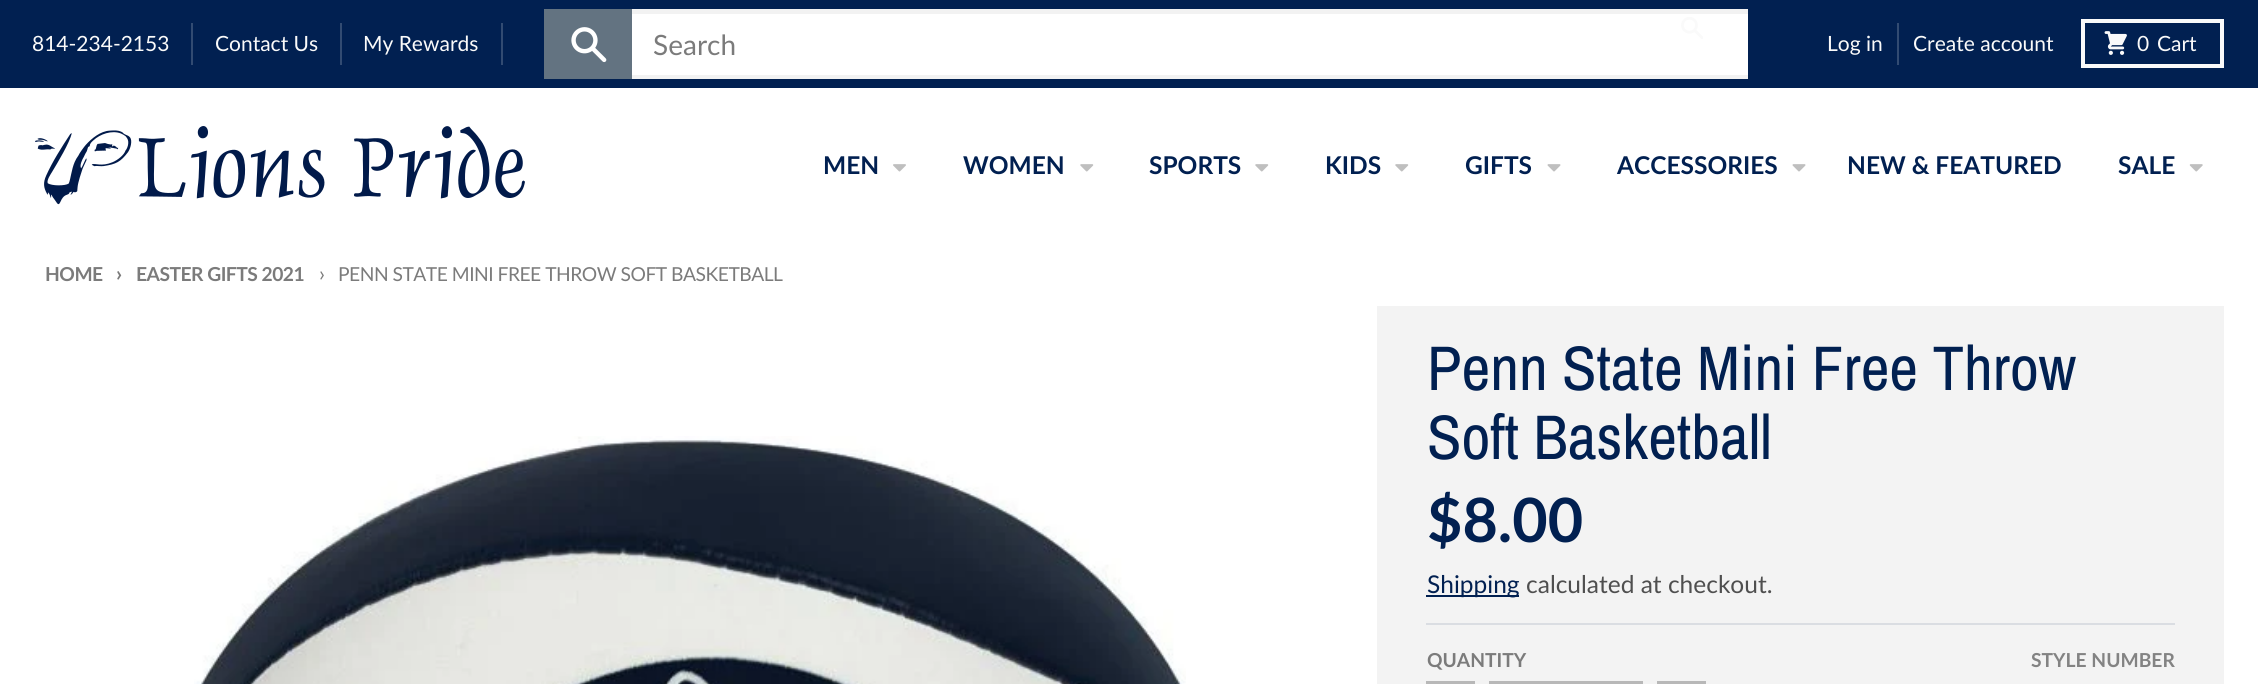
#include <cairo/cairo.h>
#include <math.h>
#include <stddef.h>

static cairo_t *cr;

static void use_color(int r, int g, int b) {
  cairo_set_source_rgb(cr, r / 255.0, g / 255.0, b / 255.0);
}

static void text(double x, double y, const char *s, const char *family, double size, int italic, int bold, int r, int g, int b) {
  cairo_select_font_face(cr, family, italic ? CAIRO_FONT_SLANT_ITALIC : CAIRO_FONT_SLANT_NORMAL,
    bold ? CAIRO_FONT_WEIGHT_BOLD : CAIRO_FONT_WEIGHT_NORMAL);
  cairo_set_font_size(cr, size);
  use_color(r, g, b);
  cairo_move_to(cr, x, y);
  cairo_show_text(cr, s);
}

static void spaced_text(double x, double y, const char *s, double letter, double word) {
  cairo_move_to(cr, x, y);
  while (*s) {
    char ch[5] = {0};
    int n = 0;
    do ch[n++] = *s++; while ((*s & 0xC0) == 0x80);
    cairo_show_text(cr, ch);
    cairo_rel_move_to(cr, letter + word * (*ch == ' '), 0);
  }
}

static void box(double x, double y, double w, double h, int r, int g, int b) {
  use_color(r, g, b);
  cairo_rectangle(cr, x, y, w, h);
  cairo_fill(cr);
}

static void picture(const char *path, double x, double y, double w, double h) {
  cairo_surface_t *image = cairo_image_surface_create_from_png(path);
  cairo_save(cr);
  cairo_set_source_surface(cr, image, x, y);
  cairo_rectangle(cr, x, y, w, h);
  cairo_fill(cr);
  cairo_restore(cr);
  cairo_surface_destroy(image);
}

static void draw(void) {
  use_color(1, 32, 81);
  cairo_paint(cr);
  box(191, 23, 2, 42, 50, 75, 114);
  box(340, 23, 2, 42, 50, 75, 114);
  box(501, 23, 2, 42, 50, 75, 114);
  box(632, 9, 1116, 70, 242, 242, 242);
  box(544, 9, 88, 70, 99, 115, 129);
  picture("img_01.png", 571, 27, 36, 36);
  box(632, 14, 1116, 61, 255, 255, 255);
  picture("img_02.png", 1681, 17, 22, 22);
  box(1897, 23, 2, 42, 50, 75, 114);
  cairo_rectangle(cr, 2083, 21, 139, 45);
  use_color(250, 250, 250);
  cairo_set_line_width(cr, 4);
  cairo_stroke(cr);
  picture("img_03.png", 2104, 31, 23, 24);
  box(0, 88, 2258, 596, 255, 255, 255);
  picture("img_04.png", 35, 126, 490, 79);
  picture("img_05.png", 893, 164, 13, 8);
  picture("img_06.png", 1080, 164, 14, 8);
  picture("img_06.png", 1255, 164, 14, 8);
  picture("img_06.png", 1395, 164, 14, 8);
  picture("img_07.png", 1547, 164, 14, 8);
  picture("img_07.png", 1792, 164, 14, 8);
  picture("img_08.png", 2189, 164, 14, 8);
  picture("img_09.png", 194, 436, 992, 248);
  box(1377, 306, 847, 378, 243, 243, 243);
  box(1426, 623, 749, 2, 218, 221, 226);
  box(1426, 595, 93, 2, 1, 32, 81);
  cairo_rectangle(cr, 1428, 683, 45, 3);
  use_color(184, 184, 184);
  cairo_stroke(cr);
  cairo_rectangle(cr, 1491, 683, 150, 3);
  cairo_stroke(cr);
  cairo_rectangle(cr, 1659, 683, 45, 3);
  cairo_stroke(cr);
  text(32, 51, "814-234-2153", "Lato", 21, 0, 0, 250, 250, 250);
  text(215, 51, "Contact Us", "Lato", 21, 0, 0, 250, 250, 250);
  text(363, 51, "My Rewards", "Lato", 21, 0, 0, 250, 250, 250);
  text(653, 55, "Search", "Lato", 28, 0, 0, 123, 123, 123);
  text(1827, 51, "Log in", "Lato", 21, 0, 0, 250, 250, 250);
  text(1913, 51, "Create account", "Lato", 21, 0, 0, 250, 250, 250);
  text(2137, 51, "0", "Lato", 21, 0, 0, 250, 250, 250);
  text(2157, 51, "Cart", "Lato", 21, 0, 0, 250, 250, 250);
  text(823, 174, "MEN", "Lato", 24.5, 0, 1, 1, 32, 81);
  text(963, 174, "WOMEN", "Lato", 24.5, 0, 1, 1, 32, 81);
  text(1149, 174, "SPORTS", "Lato", 24.5, 0, 1, 1, 32, 81);
  text(1325, 174, "KIDS", "Lato", 24.5, 0, 1, 1, 32, 81);
  text(1465, 174, "GIFTS", "Lato", 24.5, 0, 1, 1, 32, 81);
  text(1617, 174, "ACCESSORIES", "Lato", 24.5, 0, 1, 1, 32, 81);
  text(1847, 174, "NEW & FEATURED", "Lato", 24.5, 0, 1, 1, 32, 81);
  text(2118, 174, "SALE", "Lato", 24.5, 0, 1, 1, 32, 81);
  cairo_set_font_size(cr, 19.25);
  use_color(123, 123, 123);
  spaced_text(45, 281, "HOME", -0.5, 0);
  cairo_set_font_size(cr, 21);
  spaced_text(116, 281, "›", -0.5, 0);
  cairo_set_font_size(cr, 19.25);
  spaced_text(136, 281, "EASTER GIFTS 2021", -0.5, 0);
  cairo_select_font_face(cr, "Lato", CAIRO_FONT_SLANT_NORMAL, CAIRO_FONT_WEIGHT_NORMAL);
  cairo_set_font_size(cr, 21);
  spaced_text(319, 281, "›", -0.5, 0);
  cairo_set_font_size(cr, 19.25);
  spaced_text(338, 281, "PENN STATE MINI FREE THROW SOFT BASKETBALL", -0.5, 0);
  text(1427, 390, "Penn State Mini Free Throw", "Archivo Narrow", 63, 0, 0, 1, 32, 81);
  text(1427, 459, "Soft Basketball", "Archivo Narrow", 63, 0, 0, 1, 32, 81);
  text(1427, 542, "$8.00", "Lato", 61, 0, 1, 1, 32, 81);
  text(1427, 593, "Shipping", "Lato", 24.5, 0, 0, 1, 32, 81);
  text(1526, 593, "calculated at checkout.", "Lato", 24.5, 0, 0, 79, 79, 79);
  text(1427, 667, "QUANTITY", "Lato", 19.25, 0, 1, 123, 123, 123);
  text(2031, 667, "STYLE NUMBER", "Lato", 19.25, 0, 1, 131, 131, 131);
}

int main(void) {
  cairo_surface_t *surface = cairo_image_surface_create(CAIRO_FORMAT_RGB24, 2258, 684);
  cr = cairo_create(surface);
  cairo_font_options_t *options = cairo_font_options_create();
  cairo_font_options_set_hint_metrics(options, CAIRO_HINT_METRICS_OFF);
  cairo_font_options_set_hint_style(options, CAIRO_HINT_STYLE_NONE);
  cairo_set_font_options(cr, options);
  cairo_set_miter_limit(cr, 4);
  draw();
  cairo_surface_write_to_png(surface, "out.png");
  cairo_font_options_destroy(options);
  cairo_destroy(cr);
  cairo_surface_destroy(surface);
  return 0;
}
